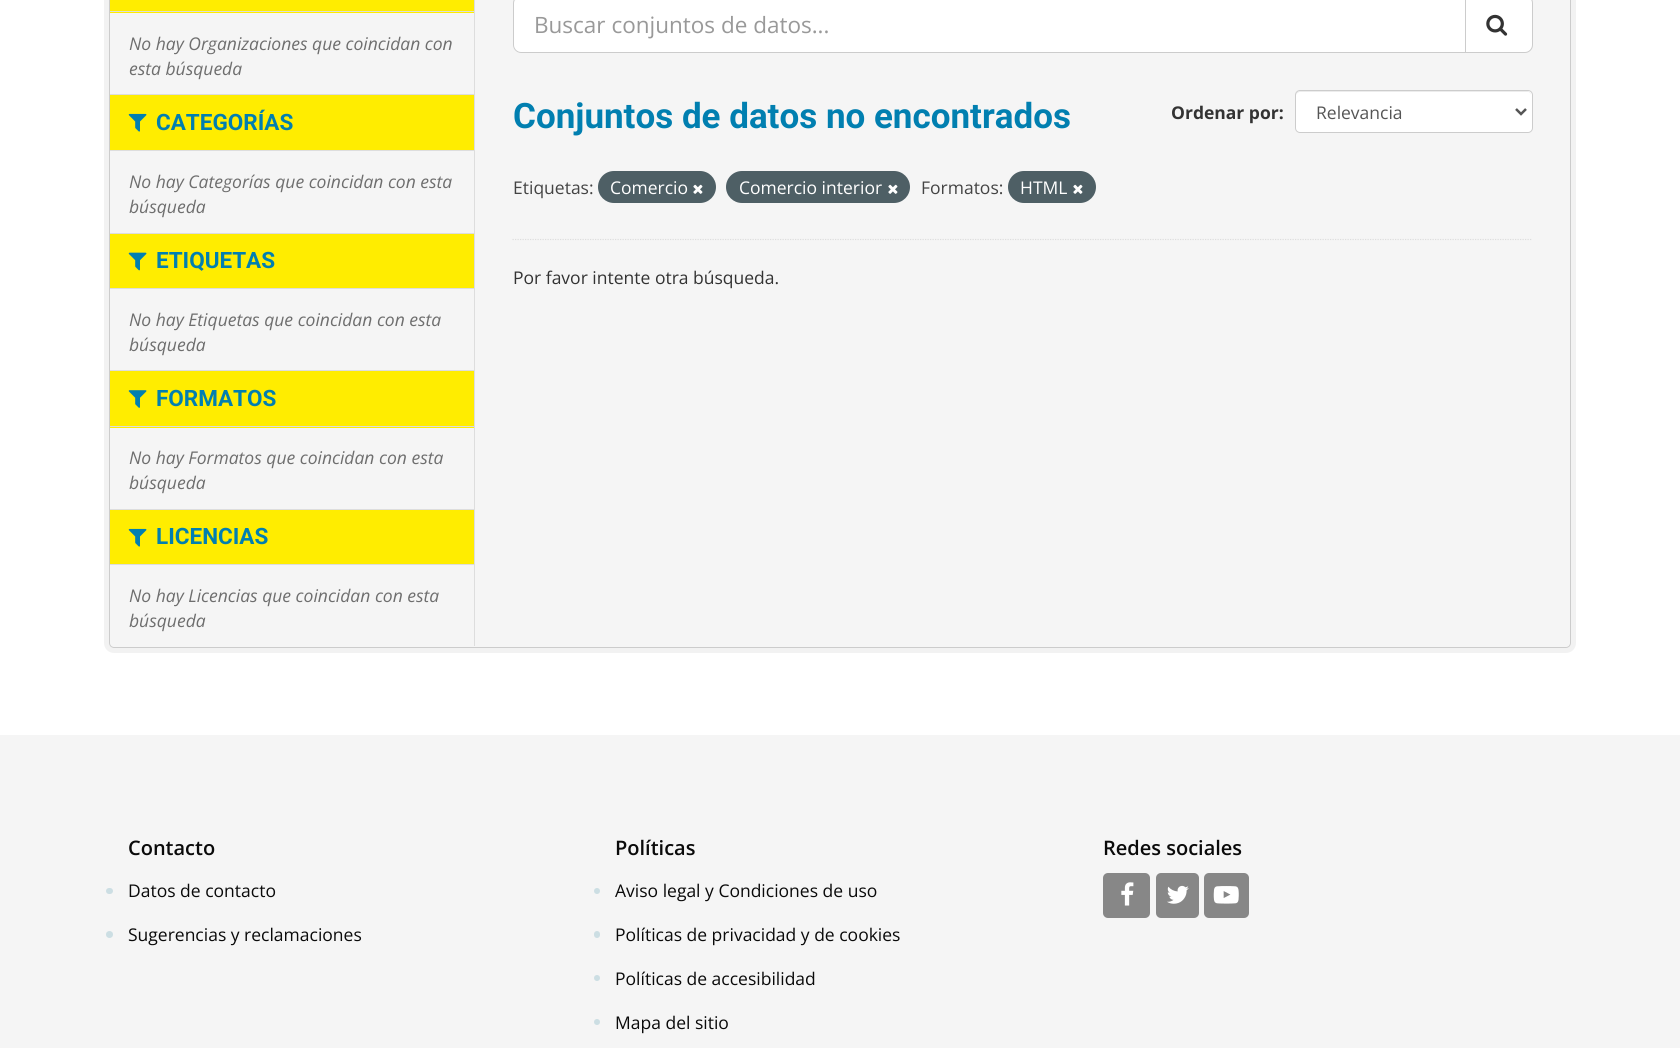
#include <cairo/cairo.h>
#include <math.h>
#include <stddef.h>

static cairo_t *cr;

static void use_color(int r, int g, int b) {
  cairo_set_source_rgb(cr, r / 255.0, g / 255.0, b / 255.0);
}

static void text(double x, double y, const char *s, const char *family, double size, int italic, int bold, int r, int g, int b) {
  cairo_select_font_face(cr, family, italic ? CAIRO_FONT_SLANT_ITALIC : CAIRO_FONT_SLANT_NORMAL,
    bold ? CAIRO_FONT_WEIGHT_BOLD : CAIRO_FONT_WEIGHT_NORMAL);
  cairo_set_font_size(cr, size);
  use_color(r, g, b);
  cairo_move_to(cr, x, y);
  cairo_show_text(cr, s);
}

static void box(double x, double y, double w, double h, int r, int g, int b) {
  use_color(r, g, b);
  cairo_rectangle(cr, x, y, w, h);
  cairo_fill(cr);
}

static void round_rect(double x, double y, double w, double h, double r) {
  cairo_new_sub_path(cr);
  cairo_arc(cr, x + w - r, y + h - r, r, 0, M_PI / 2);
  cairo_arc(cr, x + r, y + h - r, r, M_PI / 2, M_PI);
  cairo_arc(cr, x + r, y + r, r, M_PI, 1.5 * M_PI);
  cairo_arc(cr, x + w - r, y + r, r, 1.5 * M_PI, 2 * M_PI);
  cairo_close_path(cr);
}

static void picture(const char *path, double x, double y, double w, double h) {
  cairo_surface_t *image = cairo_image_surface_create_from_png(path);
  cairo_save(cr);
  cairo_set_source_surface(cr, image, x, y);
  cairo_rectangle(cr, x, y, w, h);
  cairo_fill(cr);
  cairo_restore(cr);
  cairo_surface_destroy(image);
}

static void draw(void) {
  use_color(255, 255, 255);
  cairo_paint(cr);
  round_rect(106.5, -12.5, 1467, 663, 7.5);
  use_color(242, 242, 242);
  cairo_set_line_width(cr, 5);
  cairo_stroke(cr);
  use_color(245, 245, 245);
  round_rect(109.5, -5.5, 1461, 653, 4.5);
  cairo_fill_preserve(cr);
  use_color(204, 204, 204);
  cairo_set_line_width(cr, 1);
  cairo_stroke(cr);
  box(110, 0, 364, 13, 255, 237, 0);
  box(110, 11, 364, 1, 221, 221, 221);
  box(110, 95, 364, 55, 255, 237, 0);
  box(110, 94, 364, 1, 221, 221, 221);
  box(110, 150, 364, 1, 221, 221, 221);
  picture("img_01.png", 128, 113, 19, 19);
  box(110, 234, 364, 54, 255, 237, 0);
  box(110, 233, 364, 1, 221, 221, 221);
  box(110, 288, 364, 1, 221, 221, 221);
  picture("img_02.png", 128, 252, 19, 19);
  box(110, 371, 364, 57, 255, 237, 0);
  box(110, 370, 364, 1, 221, 221, 221);
  box(110, 426, 364, 1, 221, 221, 221);
  picture("img_03.png", 128, 390, 19, 18);
  box(110, 510, 364, 54, 255, 237, 0);
  box(110, 509, 364, 1, 221, 221, 221);
  box(110, 564, 364, 1, 221, 221, 221);
  picture("img_01.png", 128, 528, 19, 19);
  box(474, 0, 1, 646, 221, 221, 221);
  cairo_new_path(cr);
  cairo_move_to(cr, 512.5, 239.5);
  cairo_line_to(cr, 1532.5, 239.5);
  cairo_set_line_width(cr, 1.2);
  cairo_set_dash(cr, (double[]){1.25, 1.25}, 2, 0);
  cairo_stroke(cr);
  use_color(255, 255, 255);
  cairo_new_path(cr);
  cairo_move_to(cr, 521, -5);
  cairo_line_to(cr, 1466, -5);
  cairo_line_to(cr, 1466, 53);
  cairo_line_to(cr, 521, 53);
  cairo_curve_to(cr, 516.5, 53, 513, 49.5, 513, 45);
  cairo_line_to(cr, 513, 3);
  cairo_curve_to(cr, 513, -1.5, 516.5, -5, 521, -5);
  cairo_close_path(cr);
  cairo_fill(cr);
  use_color(236, 236, 236);
  cairo_new_path(cr);
  cairo_move_to(cr, 520, -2);
  cairo_line_to(cr, 1465, -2);
  cairo_line_to(cr, 1465, -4);
  cairo_line_to(cr, 520, -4);
  cairo_curve_to(cr, 515, -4, 514, 0, 514, 4);
  cairo_curve_to(cr, 514, 0, 517, -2, 520, -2);
  cairo_close_path(cr);
  cairo_fill(cr);
  cairo_new_path(cr);
  cairo_move_to(cr, 521, -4.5);
  cairo_line_to(cr, 1465.5, -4.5);
  cairo_line_to(cr, 1465.5, 52.5);
  cairo_line_to(cr, 521, 52.5);
  cairo_curve_to(cr, 517, 52.5, 513.5, 49, 513.5, 45);
  cairo_line_to(cr, 513.5, 3);
  cairo_curve_to(cr, 513.5, -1, 517, -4.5, 521, -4.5);
  cairo_close_path(cr);
  use_color(204, 204, 204);
  cairo_set_line_width(cr, 1);
  cairo_set_dash(cr, NULL, 0, 0);
  cairo_stroke(cr);
  use_color(255, 255, 255);
  cairo_new_path(cr);
  cairo_move_to(cr, 1465.5, -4.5);
  cairo_line_to(cr, 1525, -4.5);
  cairo_curve_to(cr, 1529, -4.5, 1532.5, -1, 1532.5, 3);
  cairo_line_to(cr, 1532.5, 45);
  cairo_curve_to(cr, 1532.5, 49, 1529, 52.5, 1525, 52.5);
  cairo_line_to(cr, 1465.5, 52.5);
  cairo_close_path(cr);
  cairo_fill_preserve(cr);
  use_color(204, 204, 204);
  cairo_stroke(cr);
  picture("img_04.png", 1486, 14, 22, 22);
  use_color(255, 255, 255);
  round_rect(1295, 90, 238, 43, 5);
  cairo_fill(cr);
  use_color(236, 236, 236);
  cairo_new_path(cr);
  cairo_move_to(cr, 1300, 92);
  cairo_line_to(cr, 1528, 92);
  cairo_curve_to(cr, 1530, 92, 1531, 94, 1531, 96);
  cairo_curve_to(cr, 1531, 93, 1530, 91, 1527, 91);
  cairo_line_to(cr, 1300, 91);
  cairo_curve_to(cr, 1297, 91, 1296, 93, 1296, 96);
  cairo_curve_to(cr, 1296, 94, 1298, 92, 1300, 92);
  cairo_close_path(cr);
  cairo_fill(cr);
  round_rect(1295.5, 90.5, 237, 42, 4.5);
  use_color(204, 204, 204);
  cairo_stroke(cr);
  cairo_new_path(cr);
  cairo_move_to(cr, 1516, 109);
  cairo_line_to(cr, 1521, 114);
  cairo_line_to(cr, 1526, 109);
  use_color(85, 85, 85);
  cairo_set_line_width(cr, 2.5);
  cairo_stroke(cr);
  use_color(78, 95, 101);
  round_rect(598, 171, 118, 32, 16);
  cairo_fill(cr);
  picture("img_05.png", 693, 184, 10, 10);
  round_rect(726, 171, 184, 32, 16);
  cairo_fill(cr);
  picture("img_05.png", 888, 184, 10, 10);
  round_rect(1008, 171, 88, 32, 16);
  cairo_fill(cr);
  picture("img_05.png", 1073, 184, 10, 10);
  box(0, 735, 1680, 313, 245, 245, 245);
  use_color(204, 222, 227);
  round_rect(106, 888, 7, 6, 3);
  cairo_fill(cr);
  cairo_arc(cr, 109.5, 934.5, 3.5, 0, 2 * M_PI);
  cairo_fill(cr);
  cairo_arc(cr, 597, 891, 3, 0, 2 * M_PI);
  cairo_fill(cr);
  round_rect(594, 931, 6, 7, 3);
  cairo_fill(cr);
  cairo_arc(cr, 597, 978, 3, 0, 2 * M_PI);
  cairo_fill(cr);
  cairo_arc(cr, 597, 1022, 3, 0, 2 * M_PI);
  cairo_fill(cr);
  use_color(135, 135, 135);
  round_rect(1103, 873, 47, 45, 5);
  cairo_fill(cr);
  picture("img_06.png", 1121, 882, 13, 24);
  round_rect(1156, 873, 43, 45, 5);
  cairo_fill(cr);
  picture("img_07.png", 1167, 885, 22, 19);
  round_rect(1204, 873, 45, 45, 5);
  cairo_fill(cr);
  picture("img_08.png", 1213, 886, 26, 18);
  text(129, 50, "No hay Organizaciones que coincidan con", "Open Sans", 17.5, 1, 0, 110, 110, 110);
  text(129, 75, "esta búsqueda", "Open Sans", 17.5, 1, 0, 110, 110, 110);
  text(156, 130, "CATEGORÍAS", "Roboto", 22.5, 0, 1, 1, 127, 176);
  text(129, 188, "No hay Categorías que coincidan con esta", "Open Sans", 17.5, 1, 0, 110, 110, 110);
  text(129, 213, "búsqueda", "Open Sans", 17.5, 1, 0, 110, 110, 110);
  text(156, 268, "ETIQUETAS", "Roboto", 22.5, 0, 1, 1, 127, 176);
  text(129, 326, "No hay Etiquetas que coincidan con esta", "Open Sans", 17.5, 1, 0, 110, 110, 110);
  text(129, 351, "búsqueda", "Open Sans", 17.5, 1, 0, 110, 110, 110);
  text(156, 406, "FORMATOS", "Roboto", 22.5, 0, 1, 1, 127, 176);
  text(129, 464, "No hay Formatos que coincidan con esta", "Open Sans", 17.5, 1, 0, 110, 110, 110);
  text(129, 489, "búsqueda", "Open Sans", 17.5, 1, 0, 110, 110, 110);
  text(156, 544, "LICENCIAS", "Roboto", 22.5, 0, 1, 1, 127, 176);
  text(129, 602, "No hay Licencias que coincidan con esta", "Open Sans", 17.5, 1, 0, 110, 110, 110);
  text(129, 627, "búsqueda", "Open Sans", 17.5, 1, 0, 110, 110, 110);
  text(534, 33, "Buscar conjuntos de datos...", "Open Sans", 22.5, 0, 0, 153, 153, 153);
  text(513, 128, "Conjuntos de datos no encontrados", "Roboto", 35, 0, 1, 1, 127, 176);
  text(1171, 119, "Ordenar por:", "Open Sans", 17.5, 0, 1, 51, 51, 51);
  text(1316, 119, "Relevancia", "Open Sans", 17.5, 0, 0, 85, 85, 85);
  text(513, 194, "Etiquetas:", "Open Sans", 17.5, 0, 0, 68, 68, 68);
  text(610, 194, "Comercio", "Open Sans", 17.5, 0, 0, 255, 255, 255);
  text(739, 194, "Comercio interior", "Open Sans", 17.5, 0, 0, 255, 255, 255);
  text(921, 194, "Formatos:", "Open Sans", 17.5, 0, 0, 68, 68, 68);
  text(1020, 194, "HTML", "Open Sans", 17.5, 0, 0, 255, 255, 255);
  text(513, 284, "Por favor intente otra búsqueda.", "Open Sans", 17.5, 0, 0, 51, 51, 51);
  text(128, 855, "Contacto", "Open Sans SemiBold", 20, 0, 0, 10, 10, 10);
  text(128, 897, "Datos de contacto", "Open Sans", 17.5, 0, 0, 10, 10, 10);
  text(128, 941, "Sugerencias y reclamaciones", "Open Sans", 17.5, 0, 0, 10, 10, 10);
  text(615, 855, "Políticas", "Open Sans SemiBold", 20, 0, 0, 10, 10, 10);
  text(615, 897, "Aviso legal y Condiciones de uso", "Open Sans", 17.5, 0, 0, 10, 10, 10);
  text(615, 941, "Políticas de privacidad y de cookies", "Open Sans", 17.5, 0, 0, 10, 10, 10);
  text(615, 985, "Políticas de accesibilidad", "Open Sans", 17.5, 0, 0, 10, 10, 10);
  text(615, 1029, "Mapa del sitio", "Open Sans", 17.5, 0, 0, 10, 10, 10);
  text(1103, 855, "Redes sociales", "Open Sans SemiBold", 20, 0, 0, 10, 10, 10);
}

int main(void) {
  cairo_surface_t *surface = cairo_image_surface_create(CAIRO_FORMAT_RGB24, 1680, 1048);
  cr = cairo_create(surface);
  cairo_font_options_t *options = cairo_font_options_create();
  cairo_font_options_set_hint_metrics(options, CAIRO_HINT_METRICS_OFF);
  cairo_font_options_set_hint_style(options, CAIRO_HINT_STYLE_NONE);
  cairo_set_font_options(cr, options);
  cairo_set_miter_limit(cr, 4);
  draw();
  cairo_surface_write_to_png(surface, "out.png");
  cairo_font_options_destroy(options);
  cairo_destroy(cr);
  cairo_surface_destroy(surface);
  return 0;
}
